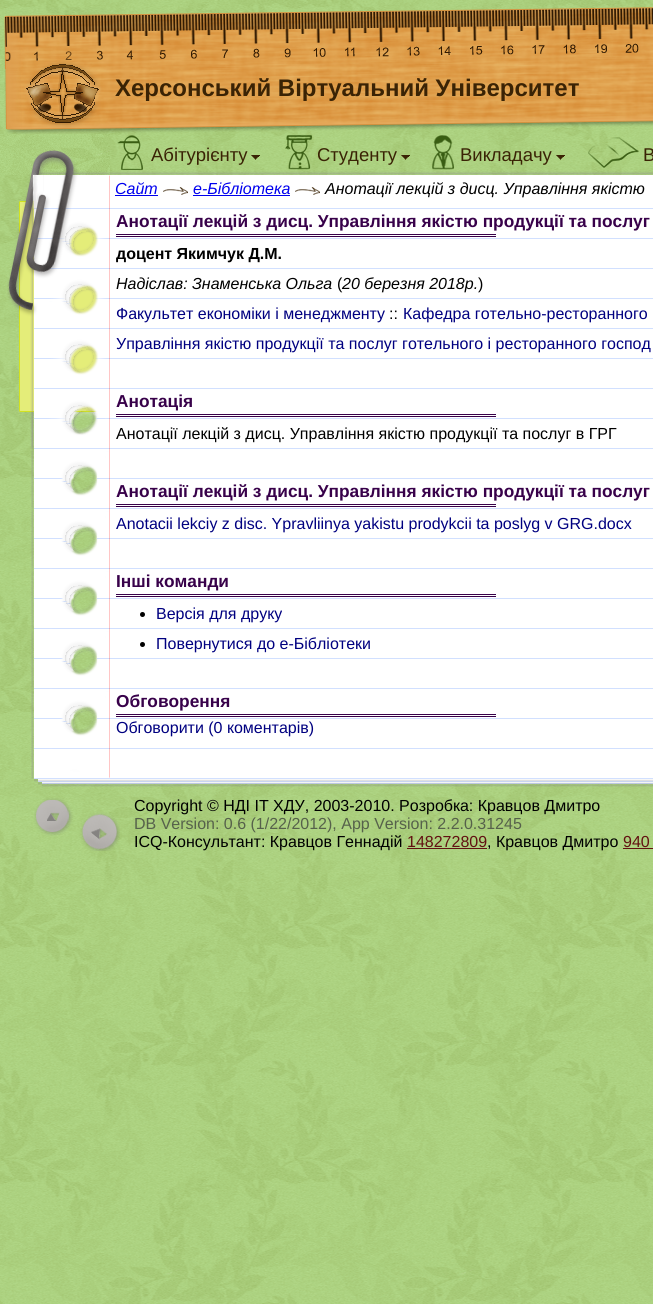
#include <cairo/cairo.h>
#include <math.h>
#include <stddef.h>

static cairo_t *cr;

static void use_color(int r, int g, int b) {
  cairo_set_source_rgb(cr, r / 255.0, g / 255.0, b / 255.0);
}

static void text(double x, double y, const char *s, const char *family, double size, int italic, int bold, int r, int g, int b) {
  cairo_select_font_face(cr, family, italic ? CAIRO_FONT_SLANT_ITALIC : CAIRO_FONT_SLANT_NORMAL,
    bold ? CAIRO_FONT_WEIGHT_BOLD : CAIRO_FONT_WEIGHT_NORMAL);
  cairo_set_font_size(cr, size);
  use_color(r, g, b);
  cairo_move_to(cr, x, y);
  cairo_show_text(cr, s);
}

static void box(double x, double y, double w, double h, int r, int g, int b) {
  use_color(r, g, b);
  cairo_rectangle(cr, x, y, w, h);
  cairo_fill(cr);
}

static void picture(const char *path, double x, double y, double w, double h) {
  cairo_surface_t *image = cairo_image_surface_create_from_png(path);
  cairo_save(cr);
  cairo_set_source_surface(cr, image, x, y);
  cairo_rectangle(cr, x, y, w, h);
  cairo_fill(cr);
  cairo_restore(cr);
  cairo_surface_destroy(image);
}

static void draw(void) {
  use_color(255, 255, 255);
  cairo_paint(cr);
  picture("img_01.png", 0, 0, 653, 1304);
  picture("img_02.png", 4, 7, 649, 127);
  picture("img_03.png", 31, 175, 79, 568);
  picture("img_04.png", 0, 134, 110, 41);
  picture("img_05.png", 7, 150, 103, 299);
  picture("img_06.png", 117, 135, 26, 35);
  picture("img_07.png", 251, 155, 9, 5);
  picture("img_08.png", 285, 135, 27, 35);
  picture("img_09.png", 401, 155, 9, 5);
  picture("img_10.png", 432, 135, 22, 35);
  picture("img_11.png", 556, 155, 9, 5);
  picture("img_12.png", 588, 137, 51, 31);
  picture("img_13.png", 110, 171, 543, 38);
  box(115, 195, 43, 1, 0, 0, 238);
  picture("img_14.png", 163, 187, 25, 8);
  box(193, 195, 97, 1, 0, 0, 238);
  picture("img_14.png", 295, 187, 25, 8);
  picture("img_15.png", 110, 209, 543, 534);
  box(116, 234, 380, 1, 56, 1, 74);
  box(116, 236, 380, 1, 56, 1, 74);
  box(116, 414, 380, 1, 56, 1, 74);
  box(116, 416, 380, 1, 56, 1, 74);
  box(116, 504, 380, 1, 56, 1, 74);
  box(116, 506, 380, 1, 56, 1, 74);
  box(116, 594, 380, 1, 56, 1, 74);
  box(116, 596, 380, 1, 56, 1, 74);
  use_color(0, 0, 0);
  cairo_arc(cr, 142.5, 614.5, 2.5, 0, 2 * M_PI);
  cairo_fill(cr);
  cairo_arc(cr, 142.5, 644.5, 2.5, 0, 2 * M_PI);
  cairo_fill(cr);
  box(116, 714, 380, 1, 56, 1, 74);
  box(116, 716, 380, 1, 56, 1, 74);
  picture("img_16.png", 31, 743, 79, 44);
  picture("img_17.png", 110, 743, 543, 44);
  picture("img_18.png", 34, 798, 86, 53);
  box(407, 848, 80, 1, 98, 17, 17);
  box(623, 848, 30, 1, 98, 17, 17);
  text(115, 96, "Херсонський Віртуальний Університет", "Liberation Sans", 24, 0, 1, 58, 35, 5);
  text(151, 161, "Абітурієнту", "Liberation Sans", 18.5, 0, 0, 58, 35, 5);
  text(317, 161, "Студенту", "Liberation Sans", 18.5, 0, 0, 58, 35, 5);
  text(460, 161, "Викладачу", "Liberation Sans", 18.5, 0, 0, 58, 35, 5);
  text(643, 161, "В", "Liberation Sans", 18.5, 0, 0, 58, 35, 5);
  text(115, 194, "Сайт", "Liberation Sans", 16, 1, 0, 0, 0, 238);
  text(193, 194, "e-Бібліотека", "Liberation Sans", 16, 1, 0, 0, 0, 238);
  text(325, 194, "Анотації лекцій з дисц. Управління якістю", "Liberation Sans", 16, 1, 0, 0, 0, 0);
  text(116, 227, "Анотації лекцій з дисц. Управління якістю продукції та послуг", "Liberation Sans", 17.3, 0, 1, 56, 1, 74);
  text(116, 259, "доцент Якимчук Д.М.", "Liberation Sans", 16, 0, 1, 0, 0, 0);
  text(116, 289, "Надіслав: Знаменська Ольга", "Liberation Sans", 16, 1, 0, 0, 0, 0);
  text(337, 289, "(", "Liberation Sans", 16, 0, 0, 0, 0, 0);
  text(342, 289, "20 березня 2018р.", "Liberation Sans", 16, 1, 0, 0, 0, 0);
  text(478, 289, ")", "Liberation Sans", 16, 0, 0, 0, 0, 0);
  text(116, 319, "Факультет економіки і менеджменту", "Liberation Sans", 16, 0, 0, 0, 0, 128);
  text(389, 319, "::", "Liberation Sans", 16, 0, 0, 0, 0, 0);
  text(403, 319, "Кафедра готельно-ресторанного", "Liberation Sans", 16, 0, 0, 0, 0, 128);
  text(116, 349, "Управління якістю продукції та послуг готельного і ресторанного господ", "Liberation Sans", 16, 0, 0, 0, 0, 128);
  text(116, 407, "Анотація", "Liberation Sans", 17.3, 0, 1, 56, 1, 74);
  text(116, 439, "Анотації лекцій з дисц. Управління якістю продукції та послуг в ГРГ", "Liberation Sans", 16, 0, 0, 0, 0, 0);
  text(116, 497, "Анотації лекцій з дисц. Управління якістю продукції та послуг", "Liberation Sans", 17.3, 0, 1, 56, 1, 74);
  text(116, 529, "Anotacii lekciy z disc. Ypravliinya yakistu prodykcii ta poslyg v GRG.docx", "Liberation Sans", 16, 0, 0, 0, 0, 128);
  text(116, 587, "Інші команди", "Liberation Sans", 17.3, 0, 1, 56, 1, 74);
  text(156, 619, "Версія для друку", "Liberation Sans", 16, 0, 0, 0, 0, 128);
  text(156, 649, "Повернутися до e-Бібліотеки", "Liberation Sans", 16, 0, 0, 0, 0, 128);
  text(116, 707, "Обговорення", "Liberation Sans", 17.3, 0, 1, 56, 1, 74);
  text(116, 733, "Обговорити (0 коментарів)", "Liberation Sans", 16, 0, 0, 0, 0, 128);
  text(134, 811, "Copyright © НДІ ІТ ХДУ, 2003-2010. Розробка: Кравцов Дмитро", "Liberation Sans", 16, 0, 0, 0, 0, 0);
  text(134, 829, "DB Version: 0.6 (1/22/2012), App Version: 2.2.0.31245", "Liberation Sans", 16, 0, 0, 86, 97, 75);
  text(134, 847, "ICQ-Консультант: Кравцов Геннадій", "Liberation Sans", 16, 0, 0, 0, 0, 0);
  text(407, 847, "148272809", "Liberation Sans", 16, 0, 0, 98, 17, 17);
  text(487, 847, ", Кравцов Дмитро", "Liberation Sans", 16, 0, 0, 0, 0, 0);
  text(623, 847, "940", "Liberation Sans", 16, 0, 0, 98, 17, 17);
}

int main(void) {
  cairo_surface_t *surface = cairo_image_surface_create(CAIRO_FORMAT_RGB24, 653, 1304);
  cr = cairo_create(surface);
  cairo_font_options_t *options = cairo_font_options_create();
  cairo_font_options_set_hint_metrics(options, CAIRO_HINT_METRICS_OFF);
  cairo_font_options_set_hint_style(options, CAIRO_HINT_STYLE_NONE);
  cairo_set_font_options(cr, options);
  cairo_set_miter_limit(cr, 4);
  draw();
  cairo_surface_write_to_png(surface, "out.png");
  cairo_font_options_destroy(options);
  cairo_destroy(cr);
  cairo_surface_destroy(surface);
  return 0;
}
